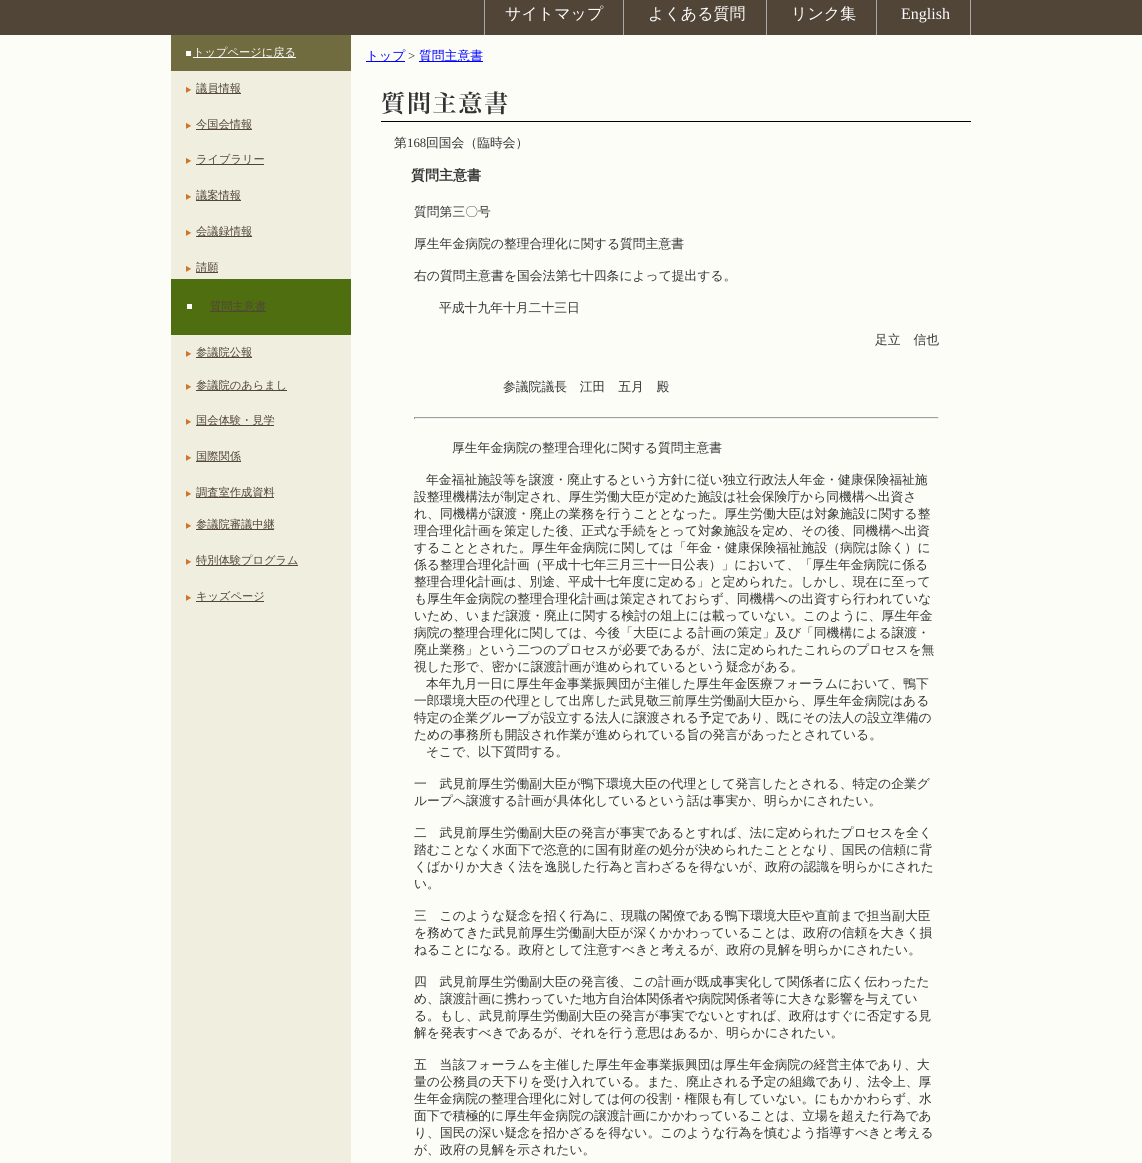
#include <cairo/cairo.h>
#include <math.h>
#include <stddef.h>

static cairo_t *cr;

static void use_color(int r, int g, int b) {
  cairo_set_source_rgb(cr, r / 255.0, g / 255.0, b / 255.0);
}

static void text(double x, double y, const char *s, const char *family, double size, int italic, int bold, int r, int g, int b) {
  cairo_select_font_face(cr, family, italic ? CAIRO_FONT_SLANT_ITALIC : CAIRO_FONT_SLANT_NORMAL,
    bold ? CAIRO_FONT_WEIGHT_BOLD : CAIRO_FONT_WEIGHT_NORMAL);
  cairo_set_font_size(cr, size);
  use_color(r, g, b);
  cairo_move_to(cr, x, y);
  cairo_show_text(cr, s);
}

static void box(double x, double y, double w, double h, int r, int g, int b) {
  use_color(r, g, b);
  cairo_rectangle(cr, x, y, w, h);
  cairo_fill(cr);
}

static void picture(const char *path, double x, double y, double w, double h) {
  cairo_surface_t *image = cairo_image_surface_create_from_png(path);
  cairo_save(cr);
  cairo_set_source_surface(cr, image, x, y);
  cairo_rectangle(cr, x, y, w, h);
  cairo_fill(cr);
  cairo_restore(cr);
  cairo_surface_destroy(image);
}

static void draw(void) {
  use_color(253, 253, 248);
  cairo_paint(cr);
  box(0, 0, 1142, 35, 81, 69, 55);
  box(623, 0, 1, 35, 170, 170, 170);
  box(484, 0, 1, 35, 170, 170, 170);
  box(766, 0, 1, 35, 170, 170, 170);
  box(876, 0, 1, 35, 170, 170, 170);
  box(970, 0, 1, 35, 170, 170, 170);
  box(171, 71, 180, 1092, 240, 239, 223);
  box(171, 35, 180, 36, 112, 108, 64);
  box(186, 51, 5, 5, 255, 255, 255);
  box(193, 57, 103, 1, 255, 255, 255);
  picture("img_01.png", 186, 87, 6, 6);
  box(196, 93, 45, 1, 81, 69, 55);
  picture("img_01.png", 186, 123, 6, 6);
  box(196, 129, 56, 1, 81, 69, 55);
  picture("img_01.png", 186, 158, 6, 6);
  box(196, 164, 68, 1, 81, 69, 55);
  picture("img_01.png", 186, 194, 6, 6);
  box(196, 200, 45, 1, 81, 69, 55);
  picture("img_01.png", 186, 230, 6, 6);
  box(196, 236, 56, 1, 81, 69, 55);
  picture("img_01.png", 186, 266, 6, 6);
  box(196, 272, 22, 1, 81, 69, 55);
  box(171, 279, 180, 56, 78, 110, 15);
  box(187, 304, 5, 5, 255, 255, 255);
  box(210, 311, 56, 1, 81, 69, 55);
  picture("img_01.png", 186, 351, 6, 6);
  box(196, 357, 56, 1, 81, 69, 55);
  picture("img_01.png", 186, 384, 6, 6);
  box(196, 390, 91, 1, 81, 69, 55);
  picture("img_01.png", 186, 419, 6, 6);
  box(196, 425, 78, 1, 81, 69, 55);
  picture("img_01.png", 186, 455, 6, 6);
  box(196, 461, 45, 1, 81, 69, 55);
  picture("img_01.png", 186, 491, 6, 6);
  box(196, 497, 78, 1, 81, 69, 55);
  picture("img_01.png", 186, 523, 6, 6);
  box(196, 529, 78, 1, 81, 69, 55);
  picture("img_01.png", 186, 559, 6, 6);
  box(196, 565, 102, 1, 81, 69, 55);
  picture("img_01.png", 186, 595, 6, 6);
  box(196, 601, 68, 1, 81, 69, 55);
  box(366, 61, 39, 1, 0, 0, 255);
  box(419, 61, 64, 1, 0, 0, 255);
  picture("img_02.png", 381, 91, 590, 31);
  box(414, 417, 525, 1, 159, 159, 159);
  box(938, 417, 1, 2, 238, 238, 238);
  box(414, 418, 525, 1, 238, 238, 238);
  box(414, 417, 1, 2, 159, 159, 159);
  text(505, 19, "サイトマップ", "WenQuanYi Zen Hei Medium", 16, 0, 0, 255, 255, 255);
  text(648, 19, "よくある質問", "WenQuanYi Zen Hei Medium", 16, 0, 0, 255, 255, 255);
  text(791, 19, "リンク集", "WenQuanYi Zen Hei Medium", 16, 0, 0, 255, 255, 255);
  text(901, 19, "English", "Liberation Serif", 16, 0, 0, 255, 255, 255);
  text(193, 56, "トップページに戻る", "WenQuanYi Zen Hei Medium", 11.25, 0, 0, 255, 255, 255);
  text(196, 92, "議員情報", "WenQuanYi Zen Hei Medium", 11.25, 0, 0, 81, 69, 55);
  text(196, 128, "今国会情報", "WenQuanYi Zen Hei Medium", 11.25, 0, 0, 81, 69, 55);
  text(196, 163, "ライブラリー", "WenQuanYi Zen Hei Medium", 11.25, 0, 0, 81, 69, 55);
  text(196, 199, "議案情報", "WenQuanYi Zen Hei Medium", 11.25, 0, 0, 81, 69, 55);
  text(196, 235, "会議録情報", "WenQuanYi Zen Hei Medium", 11.25, 0, 0, 81, 69, 55);
  text(196, 271, "請願", "WenQuanYi Zen Hei Medium", 11.25, 0, 0, 81, 69, 55);
  text(210, 310, "質問主意書", "WenQuanYi Zen Hei Medium", 11.25, 0, 0, 81, 69, 55);
  text(196, 356, "参議院公報", "WenQuanYi Zen Hei Medium", 11.25, 0, 0, 81, 69, 55);
  text(196, 389, "参議院のあらまし", "WenQuanYi Zen Hei Medium", 11.25, 0, 0, 81, 69, 55);
  text(196, 424, "国会体験・見学", "WenQuanYi Zen Hei Medium", 11.25, 0, 0, 81, 69, 55);
  text(196, 460, "国際関係", "WenQuanYi Zen Hei Medium", 11.25, 0, 0, 81, 69, 55);
  text(196, 496, "調査室作成資料", "WenQuanYi Zen Hei Medium", 11.25, 0, 0, 81, 69, 55);
  text(196, 528, "参議院審議中継", "WenQuanYi Zen Hei Medium", 11.25, 0, 0, 81, 69, 55);
  text(196, 564, "特別体験プログラム", "WenQuanYi Zen Hei Medium", 11.25, 0, 0, 81, 69, 55);
  text(196, 600, "キッズページ", "WenQuanYi Zen Hei Medium", 11.25, 0, 0, 81, 69, 55);
  text(366, 60, "トップ", "WenQuanYi Zen Hei Medium", 12.8, 0, 0, 0, 0, 255);
  text(408, 60, ">", "Liberation Serif", 12.8, 0, 0, 51, 51, 51);
  text(419, 60, "質問主意書", "WenQuanYi Zen Hei Medium", 12.8, 0, 0, 0, 0, 255);
  text(394, 147, "第", "WenQuanYi Zen Hei Medium", 12.8, 0, 0, 51, 51, 51);
  text(407, 147, "168", "Liberation Serif", 12.8, 0, 0, 51, 51, 51);
  text(426, 147, "回国会（臨時会）", "WenQuanYi Zen Hei Medium", 12.8, 0, 0, 51, 51, 51);
  text(411, 180, "質問主意書", "WenQuanYi Zen Hei", 14, 0, 1, 51, 51, 51);
  text(414, 216, "質問第三〇号", "WenQuanYi Zen Hei Medium", 12.8, 0, 0, 51, 51, 51);
  text(414, 248, "厚生年金病院の整理合理化に関する質問主意書", "WenQuanYi Zen Hei Medium", 12.8, 0, 0, 51, 51, 51);
  text(414, 280, "右の質問主意書を国会法第七十四条によって提出する。", "WenQuanYi Zen Hei Medium", 12.8, 0, 0, 51, 51, 51);
  text(439, 312, "平成十九年十月二十三日", "WenQuanYi Zen Hei Medium", 12.8, 0, 0, 51, 51, 51);
  text(875, 344, "足立　信也", "WenQuanYi Zen Hei Medium", 12.8, 0, 0, 51, 51, 51);
  text(503, 391, "参議院議長　江田　五月　殿", "WenQuanYi Zen Hei Medium", 12.8, 0, 0, 51, 51, 51);
  text(452, 452, "厚生年金病院の整理合理化に関する質問主意書", "WenQuanYi Zen Hei Medium", 12.8, 0, 0, 51, 51, 51);
  text(426, 484, "年金福祉施設等を譲渡・廃止するという方針に従い独立行政法人年金・健康保険福祉施", "WenQuanYi Zen Hei Medium", 12.8, 0, 0, 51, 51, 51);
  text(414, 501, "設整理機構法が制定され、厚生労働大臣が定めた施設は社会保険庁から同機構へ出資さ", "WenQuanYi Zen Hei Medium", 12.8, 0, 0, 51, 51, 51);
  text(414, 518, "れ、同機構が譲渡・廃止の業務を行うこととなった。厚生労働大臣は対象施設に関する整", "WenQuanYi Zen Hei Medium", 12.8, 0, 0, 51, 51, 51);
  text(414, 535, "理合理化計画を策定した後、正式な手続をとって対象施設を定め、その後、同機構へ出資", "WenQuanYi Zen Hei Medium", 12.8, 0, 0, 51, 51, 51);
  text(414, 552, "することとされた。厚生年金病院に関しては「年金・健康保険福祉施設（病院は除く）に", "WenQuanYi Zen Hei Medium", 12.8, 0, 0, 51, 51, 51);
  text(414, 569, "係る整理合理化計画（平成十七年三月三十一日公表）」において、「厚生年金病院に係る", "WenQuanYi Zen Hei Medium", 12.8, 0, 0, 51, 51, 51);
  text(414, 586, "整理合理化計画は、別途、平成十七年度に定める」と定められた。しかし、現在に至って", "WenQuanYi Zen Hei Medium", 12.8, 0, 0, 51, 51, 51);
  text(414, 603, "も厚生年金病院の整理合理化計画は策定されておらず、同機構への出資すら行われていな", "WenQuanYi Zen Hei Medium", 12.8, 0, 0, 51, 51, 51);
  text(414, 620, "いため、いまだ譲渡・廃止に関する検討の俎上には載っていない。このように、厚生年金", "WenQuanYi Zen Hei Medium", 12.8, 0, 0, 51, 51, 51);
  text(414, 637, "病院の整理合理化に関しては、今後「大臣による計画の策定」及び「同機構による譲渡・", "WenQuanYi Zen Hei Medium", 12.8, 0, 0, 51, 51, 51);
  text(414, 654, "廃止業務」という二つのプロセスが必要であるが、法に定められたこれらのプロセスを無", "WenQuanYi Zen Hei Medium", 12.8, 0, 0, 51, 51, 51);
  text(414, 671, "視した形で、密かに譲渡計画が進められているという疑念がある。", "WenQuanYi Zen Hei Medium", 12.8, 0, 0, 51, 51, 51);
  text(426, 688, "本年九月一日に厚生年金事業振興団が主催した厚生年金医療フォーラムにおいて、鴨下", "WenQuanYi Zen Hei Medium", 12.8, 0, 0, 51, 51, 51);
  text(414, 705, "一郎環境大臣の代理として出席した武見敬三前厚生労働副大臣から、厚生年金病院はある", "WenQuanYi Zen Hei Medium", 12.8, 0, 0, 51, 51, 51);
  text(414, 722, "特定の企業グループが設立する法人に譲渡される予定であり、既にその法人の設立準備の", "WenQuanYi Zen Hei Medium", 12.8, 0, 0, 51, 51, 51);
  text(414, 739, "ための事務所も開設され作業が進められている旨の発言があったとされている。", "WenQuanYi Zen Hei Medium", 12.8, 0, 0, 51, 51, 51);
  text(426, 756, "そこで、以下質問する。", "WenQuanYi Zen Hei Medium", 12.8, 0, 0, 51, 51, 51);
  text(414, 788, "一　武見前厚生労働副大臣が鴨下環境大臣の代理として発言したとされる、特定の企業グ", "WenQuanYi Zen Hei Medium", 12.8, 0, 0, 51, 51, 51);
  text(414, 805, "ループへ譲渡する計画が具体化しているという話は事実か、明らかにされたい。", "WenQuanYi Zen Hei Medium", 12.8, 0, 0, 51, 51, 51);
  text(414, 837, "二　武見前厚生労働副大臣の発言が事実であるとすれば、法に定められたプロセスを全く", "WenQuanYi Zen Hei Medium", 12.8, 0, 0, 51, 51, 51);
  text(414, 854, "踏むことなく水面下で恣意的に国有財産の処分が決められたこととなり、国民の信頼に背", "WenQuanYi Zen Hei Medium", 12.8, 0, 0, 51, 51, 51);
  text(414, 871, "くばかりか大きく法を逸脱した行為と言わざるを得ないが、政府の認識を明らかにされた", "WenQuanYi Zen Hei Medium", 12.8, 0, 0, 51, 51, 51);
  text(414, 888, "い。", "WenQuanYi Zen Hei Medium", 12.8, 0, 0, 51, 51, 51);
  text(414, 920, "三　このような疑念を招く行為に、現職の閣僚である鴨下環境大臣や直前まで担当副大臣", "WenQuanYi Zen Hei Medium", 12.8, 0, 0, 51, 51, 51);
  text(414, 937, "を務めてきた武見前厚生労働副大臣が深くかかわっていることは、政府の信頼を大きく損", "WenQuanYi Zen Hei Medium", 12.8, 0, 0, 51, 51, 51);
  text(414, 954, "ねることになる。政府として注意すべきと考えるが、政府の見解を明らかにされたい。", "WenQuanYi Zen Hei Medium", 12.8, 0, 0, 51, 51, 51);
  text(414, 986, "四　武見前厚生労働副大臣の発言後、この計画が既成事実化して関係者に広く伝わったた", "WenQuanYi Zen Hei Medium", 12.8, 0, 0, 51, 51, 51);
  text(414, 1003, "め、譲渡計画に携わっていた地方自治体関係者や病院関係者等に大きな影響を与えてい", "WenQuanYi Zen Hei Medium", 12.8, 0, 0, 51, 51, 51);
  text(414, 1020, "る。もし、武見前厚生労働副大臣の発言が事実でないとすれば、政府はすぐに否定する見", "WenQuanYi Zen Hei Medium", 12.8, 0, 0, 51, 51, 51);
  text(414, 1037, "解を発表すべきであるが、それを行う意思はあるか、明らかにされたい。", "WenQuanYi Zen Hei Medium", 12.8, 0, 0, 51, 51, 51);
  text(414, 1069, "五　当該フォーラムを主催した厚生年金事業振興団は厚生年金病院の経営主体であり、大", "WenQuanYi Zen Hei Medium", 12.8, 0, 0, 51, 51, 51);
  text(414, 1086, "量の公務員の天下りを受け入れている。また、廃止される予定の組織であり、法令上、厚", "WenQuanYi Zen Hei Medium", 12.8, 0, 0, 51, 51, 51);
  text(414, 1103, "生年金病院の整理合理化に対しては何の役割・権限も有していない。にもかかわらず、水", "WenQuanYi Zen Hei Medium", 12.8, 0, 0, 51, 51, 51);
  text(414, 1120, "面下で積極的に厚生年金病院の譲渡計画にかかわっていることは、立場を超えた行為であ", "WenQuanYi Zen Hei Medium", 12.8, 0, 0, 51, 51, 51);
  text(414, 1137, "り、国民の深い疑念を招かざるを得ない。このような行為を慎むよう指導すべきと考える", "WenQuanYi Zen Hei Medium", 12.8, 0, 0, 51, 51, 51);
  text(414, 1154, "が、政府の見解を示されたい。", "WenQuanYi Zen Hei Medium", 12.8, 0, 0, 51, 51, 51);
}

int main(void) {
  cairo_surface_t *surface = cairo_image_surface_create(CAIRO_FORMAT_RGB24, 1142, 1163);
  cr = cairo_create(surface);
  cairo_font_options_t *options = cairo_font_options_create();
  cairo_font_options_set_hint_metrics(options, CAIRO_HINT_METRICS_OFF);
  cairo_font_options_set_hint_style(options, CAIRO_HINT_STYLE_NONE);
  cairo_set_font_options(cr, options);
  cairo_set_miter_limit(cr, 4);
  draw();
  cairo_surface_write_to_png(surface, "out.png");
  cairo_font_options_destroy(options);
  cairo_destroy(cr);
  cairo_surface_destroy(surface);
  return 0;
}
